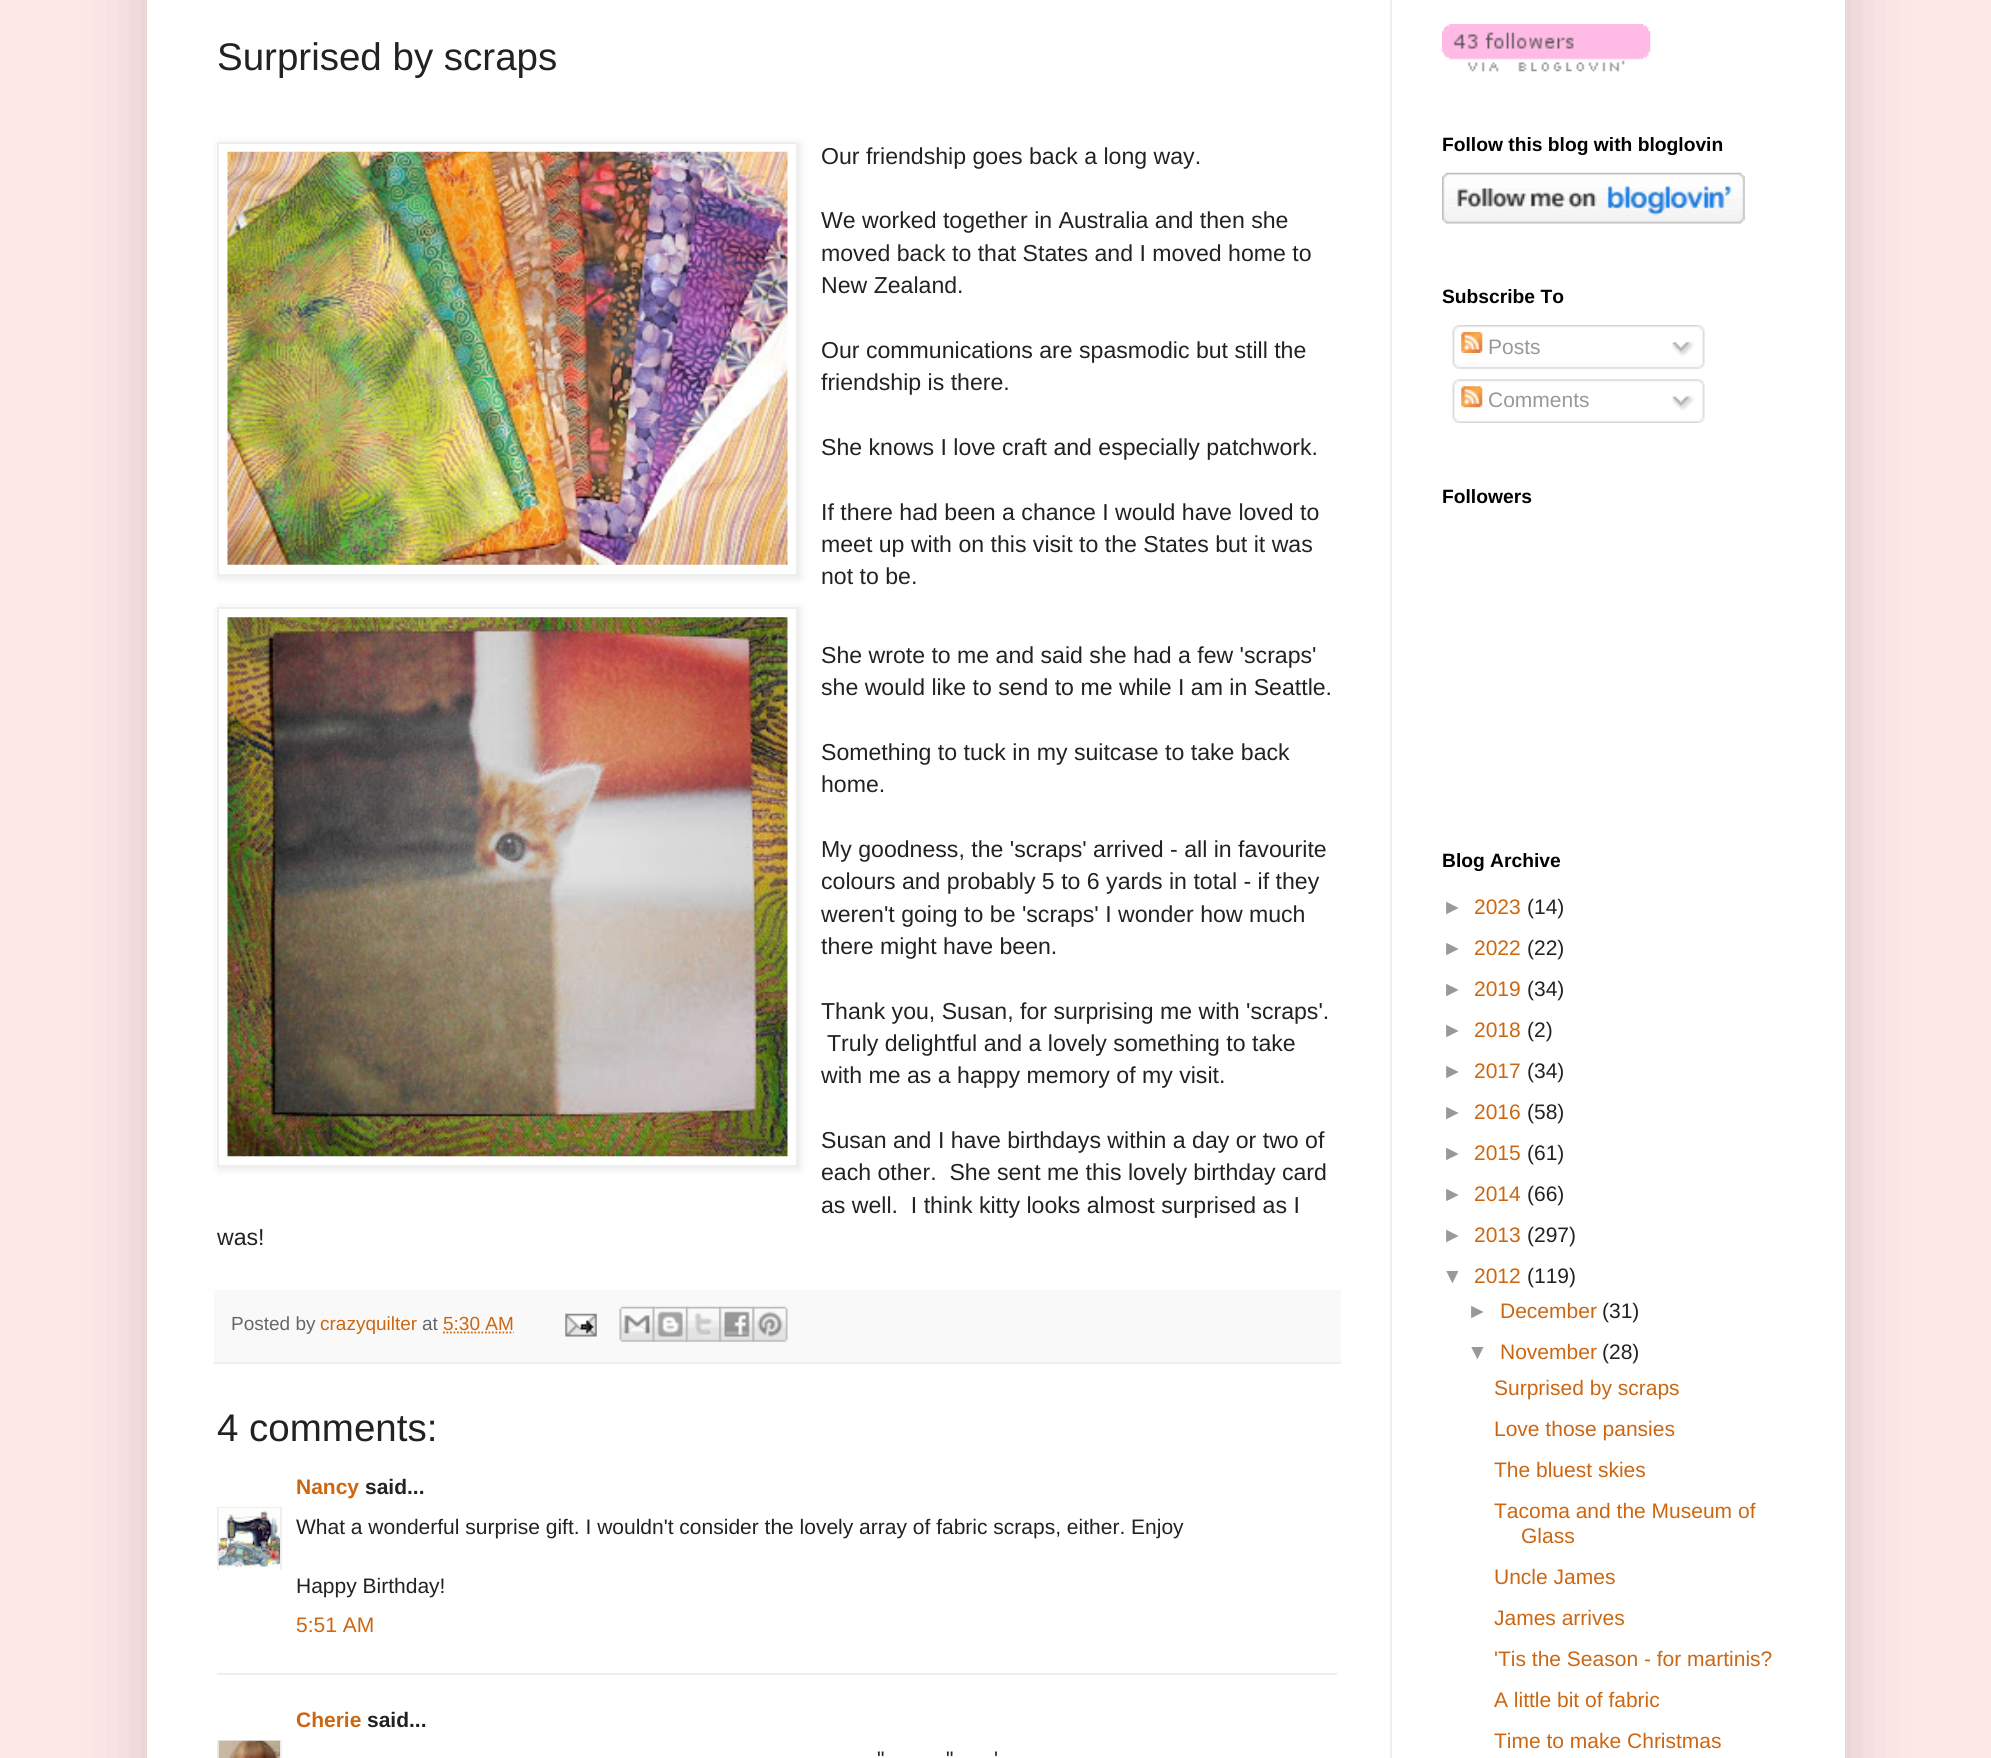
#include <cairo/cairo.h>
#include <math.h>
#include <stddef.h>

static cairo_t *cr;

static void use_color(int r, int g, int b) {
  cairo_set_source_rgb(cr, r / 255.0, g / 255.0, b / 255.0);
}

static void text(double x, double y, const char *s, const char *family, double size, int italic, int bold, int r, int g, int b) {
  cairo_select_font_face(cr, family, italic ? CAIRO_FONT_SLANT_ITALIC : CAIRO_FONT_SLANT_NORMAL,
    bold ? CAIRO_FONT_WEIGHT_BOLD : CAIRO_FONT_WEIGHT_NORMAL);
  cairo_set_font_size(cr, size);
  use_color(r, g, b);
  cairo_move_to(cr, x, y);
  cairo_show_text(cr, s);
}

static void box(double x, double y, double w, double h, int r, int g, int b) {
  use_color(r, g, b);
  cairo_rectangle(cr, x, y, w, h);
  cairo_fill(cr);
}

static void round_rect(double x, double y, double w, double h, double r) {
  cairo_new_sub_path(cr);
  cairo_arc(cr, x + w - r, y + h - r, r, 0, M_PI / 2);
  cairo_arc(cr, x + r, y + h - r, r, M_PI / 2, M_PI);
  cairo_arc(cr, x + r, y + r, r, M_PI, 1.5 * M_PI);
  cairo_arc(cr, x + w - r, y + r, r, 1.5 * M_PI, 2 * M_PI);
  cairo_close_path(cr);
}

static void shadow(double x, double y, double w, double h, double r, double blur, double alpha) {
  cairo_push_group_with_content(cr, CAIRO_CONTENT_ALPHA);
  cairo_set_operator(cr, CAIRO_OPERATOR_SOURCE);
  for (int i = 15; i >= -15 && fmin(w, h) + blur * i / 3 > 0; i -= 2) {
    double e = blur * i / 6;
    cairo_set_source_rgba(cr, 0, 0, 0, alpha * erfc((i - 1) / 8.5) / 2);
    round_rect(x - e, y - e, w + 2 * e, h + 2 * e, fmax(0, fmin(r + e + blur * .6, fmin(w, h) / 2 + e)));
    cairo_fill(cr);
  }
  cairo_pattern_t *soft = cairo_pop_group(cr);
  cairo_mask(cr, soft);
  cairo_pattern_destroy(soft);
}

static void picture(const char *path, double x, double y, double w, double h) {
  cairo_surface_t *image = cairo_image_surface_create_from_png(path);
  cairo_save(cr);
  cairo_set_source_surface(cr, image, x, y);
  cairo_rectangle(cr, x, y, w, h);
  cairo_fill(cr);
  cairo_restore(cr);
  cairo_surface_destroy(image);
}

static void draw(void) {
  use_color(253, 232, 232);
  cairo_paint(cr);
  use_color(0, 0, 0);
  shadow(147, -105, 1698, 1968, 0, 35, 0.15);
  box(147, 0, 1698, 1758, 255, 255, 255);
  box(1390, 0, 2, 1758, 238, 238, 238);
  use_color(0, 0, 0);
  shadow(219, 144, 581, 434, 0, 4.5, 0.1);
  use_color(255, 255, 255);
  cairo_rectangle(cr, 218, 143, 579, 432);
  cairo_fill_preserve(cr);
  use_color(238, 238, 238);
  cairo_stroke(cr);
  picture("img_01.png", 227, 151, 561, 414);
  use_color(0, 0, 0);
  shadow(219, 609, 581, 560, 0, 4.5, 0.1);
  use_color(255, 255, 255);
  cairo_rectangle(cr, 218, 608, 579, 558);
  cairo_fill_preserve(cr);
  use_color(238, 238, 238);
  cairo_stroke(cr);
  picture("img_02.png", 227, 617, 561, 540);
  box(214, 1290, 1127, 72, 249, 249, 249);
  box(214, 1362, 1127, 2, 238, 238, 238);
  cairo_new_path(cr);
  cairo_move_to(cr, 443, 1332.5);
  cairo_line_to(cr, 513.5, 1332.5);
  use_color(204, 102, 17);
  cairo_set_line_width(cr, 1.8);
  cairo_set_dash(cr, (double[]){1.75, 1.75}, 2, 0);
  cairo_stroke(cr);
  picture("img_03.png", 565, 1313, 32, 24);
  picture("img_04.png", 619, 1306, 36, 36);
  picture("img_05.png", 652, 1306, 36, 36);
  picture("img_06.png", 686, 1306, 35, 36);
  picture("img_07.png", 719, 1306, 36, 36);
  picture("img_08.png", 752, 1306, 36, 36);
  cairo_save(cr);
  cairo_rectangle(cr, 217, 1507, 65, 63);
  cairo_clip(cr);
  cairo_rectangle(cr, 218, 1508, 63, 63);
  use_color(238, 238, 238);
  cairo_set_line_width(cr, 2);
  cairo_set_dash(cr, NULL, 0, 0);
  cairo_stroke(cr);
  cairo_restore(cr);
  picture("img_09.png", 218, 1508, 62, 61);
  box(217, 1673, 1120, 2, 238, 238, 238);
  cairo_rectangle(cr, 218, 1741, 63, 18);
  cairo_set_line_width(cr, 2);
  cairo_set_dash(cr, NULL, 0, 0);
  cairo_stroke(cr);
  picture("img_10.png", 218, 1740, 62, 18);
  picture("img_11.png", 1442, 24, 209, 48);
  picture("img_12.png", 1442, 172, 303, 52);
  picture("img_13.png", 1452, 325, 253, 39);
  picture("img_14.png", 1461, 332, 22, 21);
  picture("img_15.png", 1671, 341, 23, 16);
  picture("img_16.png", 1452, 363, 253, 6);
  picture("img_17.png", 1452, 379, 253, 39);
  picture("img_18.png", 1461, 386, 22, 22);
  picture("img_19.png", 1671, 395, 23, 16);
  picture("img_20.png", 1452, 417, 253, 6);
  text(217, 70, "Surprised by scraps", "Liberation Sans", 38.5, 0, 0, 34, 34, 34);
  text(821, 164, "Our friendship goes back a long way.", "Liberation Sans", 23.1, 0, 0, 34, 34, 34);
  text(821, 228, "We worked together in Australia and then she", "Liberation Sans", 23.1, 0, 0, 34, 34, 34);
  text(821, 261, "moved back to that States and I moved home to", "Liberation Sans", 23.1, 0, 0, 34, 34, 34);
  text(821, 293, "New Zealand.", "Liberation Sans", 23.1, 0, 0, 34, 34, 34);
  text(821, 358, "Our communications are spasmodic but still the", "Liberation Sans", 23.1, 0, 0, 34, 34, 34);
  text(821, 390, "friendship is there.", "Liberation Sans", 23.1, 0, 0, 34, 34, 34);
  text(821, 455, "She knows I love craft and especially patchwork.", "Liberation Sans", 23.1, 0, 0, 34, 34, 34);
  text(821, 520, "If there had been a chance I would have loved to", "Liberation Sans", 23.1, 0, 0, 34, 34, 34);
  text(821, 552, "meet up with on this visit to the States but it was", "Liberation Sans", 23.1, 0, 0, 34, 34, 34);
  text(821, 584, "not to be.", "Liberation Sans", 23.1, 0, 0, 34, 34, 34);
  text(821, 663, "She wrote to me and said she had a few 'scraps'", "Liberation Sans", 23.1, 0, 0, 34, 34, 34);
  text(821, 695, "she would like to send to me while I am in Seattle.", "Liberation Sans", 23.1, 0, 0, 34, 34, 34);
  text(821, 760, "Something to tuck in my suitcase to take back", "Liberation Sans", 23.1, 0, 0, 34, 34, 34);
  text(821, 792, "home.", "Liberation Sans", 23.1, 0, 0, 34, 34, 34);
  text(821, 857, "My goodness, the 'scraps' arrived - all in favourite", "Liberation Sans", 23.1, 0, 0, 34, 34, 34);
  text(821, 889, "colours and probably 5 to 6 yards in total - if they", "Liberation Sans", 23.1, 0, 0, 34, 34, 34);
  text(821, 922, "weren't going to be 'scraps' I wonder how much", "Liberation Sans", 23.1, 0, 0, 34, 34, 34);
  text(821, 954, "there might have been.", "Liberation Sans", 23.1, 0, 0, 34, 34, 34);
  text(821, 1019, "Thank you, Susan, for surprising me with 'scraps'.", "Liberation Sans", 23.1, 0, 0, 34, 34, 34);
  text(827, 1051, "Truly delightful and a lovely something to take", "Liberation Sans", 23.1, 0, 0, 34, 34, 34);
  text(821, 1083, "with me as a happy memory of my visit.", "Liberation Sans", 23.1, 0, 0, 34, 34, 34);
  text(821, 1148, "Susan and I have birthdays within a day or two of", "Liberation Sans", 23.1, 0, 0, 34, 34, 34);
  text(821, 1180, "each other.  She sent me this lovely birthday card", "Liberation Sans", 23.1, 0, 0, 34, 34, 34);
  text(821, 1213, "as well.  I think kitty looks almost surprised as I", "Liberation Sans", 23.1, 0, 0, 34, 34, 34);
  text(217, 1245, "was!", "Liberation Sans", 23.1, 0, 0, 34, 34, 34);
  text(231, 1330, "Posted by", "Liberation Sans", 19, 0, 0, 102, 102, 102);
  text(320, 1330, "crazyquilter", "Liberation Sans", 19, 0, 0, 204, 102, 17);
  text(422, 1330, "at", "Liberation Sans", 19, 0, 0, 102, 102, 102);
  text(443, 1330, "5:30 AM", "Liberation Sans", 19, 0, 0, 204, 102, 17);
  text(217, 1441, "4 comments:", "Liberation Sans", 38.5, 0, 0, 34, 34, 34);
  text(296, 1494, "Nancy", "Liberation Sans", 21, 0, 1, 204, 102, 17);
  text(365, 1494, "said...", "Liberation Sans", 21, 0, 1, 34, 34, 34);
  text(296, 1534, "What a wonderful surprise gift. I wouldn't consider the lovely array of fabric scraps, either. Enjoy", "Liberation Sans", 21, 0, 0, 34, 34, 34);
  text(296, 1593, "Happy Birthday!", "Liberation Sans", 21, 0, 0, 34, 34, 34);
  text(296, 1632, "5:51 AM", "Liberation Sans", 21, 0, 0, 204, 102, 17);
  text(296, 1727, "Cherie", "Liberation Sans", 21, 0, 1, 204, 102, 17);
  text(367, 1727, "said...", "Liberation Sans", 21, 0, 1, 34, 34, 34);
  text(877, 1766, "\"", "Liberation Sans", 21, 0, 0, 34, 34, 34);
  text(946, 1766, "\"", "Liberation Sans", 21, 0, 0, 34, 34, 34);
  text(994, 1766, "'", "Liberation Sans", 21, 0, 0, 34, 34, 34);
  text(1442, 151, "Follow this blog with bloglovin", "Liberation Sans", 19.25, 0, 1, 0, 0, 0);
  text(1442, 303, "Subscribe To", "Liberation Sans", 19.25, 0, 1, 0, 0, 0);
  text(1488, 354, "Posts", "Liberation Sans", 21, 0, 0, 153, 153, 153);
  text(1488, 407, "Comments", "Liberation Sans", 21, 0, 0, 153, 153, 153);
  text(1442, 503, "Followers", "Liberation Sans", 19.25, 0, 1, 0, 0, 0);
  text(1442, 867, "Blog Archive", "Liberation Sans", 19.25, 0, 1, 0, 0, 0);
  text(1442, 914, "►", "Liberation Sans", 21, 0, 0, 153, 153, 153);
  text(1474, 914, "2023", "Liberation Sans", 21, 0, 0, 204, 102, 17);
  text(1527, 914, "(14)", "Liberation Sans", 21, 0, 0, 34, 34, 34);
  text(1442, 955, "►", "Liberation Sans", 21, 0, 0, 153, 153, 153);
  text(1474, 955, "2022", "Liberation Sans", 21, 0, 0, 204, 102, 17);
  text(1527, 955, "(22)", "Liberation Sans", 21, 0, 0, 34, 34, 34);
  text(1442, 996, "►", "Liberation Sans", 21, 0, 0, 153, 153, 153);
  text(1474, 996, "2019", "Liberation Sans", 21, 0, 0, 204, 102, 17);
  text(1527, 996, "(34)", "Liberation Sans", 21, 0, 0, 34, 34, 34);
  text(1442, 1037, "►", "Liberation Sans", 21, 0, 0, 153, 153, 153);
  text(1474, 1037, "2018", "Liberation Sans", 21, 0, 0, 204, 102, 17);
  text(1527, 1037, "(2)", "Liberation Sans", 21, 0, 0, 34, 34, 34);
  text(1442, 1078, "►", "Liberation Sans", 21, 0, 0, 153, 153, 153);
  text(1474, 1078, "2017", "Liberation Sans", 21, 0, 0, 204, 102, 17);
  text(1527, 1078, "(34)", "Liberation Sans", 21, 0, 0, 34, 34, 34);
  text(1442, 1119, "►", "Liberation Sans", 21, 0, 0, 153, 153, 153);
  text(1474, 1119, "2016", "Liberation Sans", 21, 0, 0, 204, 102, 17);
  text(1527, 1119, "(58)", "Liberation Sans", 21, 0, 0, 34, 34, 34);
  text(1442, 1160, "►", "Liberation Sans", 21, 0, 0, 153, 153, 153);
  text(1474, 1160, "2015", "Liberation Sans", 21, 0, 0, 204, 102, 17);
  text(1527, 1160, "(61)", "Liberation Sans", 21, 0, 0, 34, 34, 34);
  text(1442, 1201, "►", "Liberation Sans", 21, 0, 0, 153, 153, 153);
  text(1474, 1201, "2014", "Liberation Sans", 21, 0, 0, 204, 102, 17);
  text(1527, 1201, "(66)", "Liberation Sans", 21, 0, 0, 34, 34, 34);
  text(1442, 1242, "►", "Liberation Sans", 21, 0, 0, 153, 153, 153);
  text(1474, 1242, "2013", "Liberation Sans", 21, 0, 0, 204, 102, 17);
  text(1527, 1242, "(297)", "Liberation Sans", 21, 0, 0, 34, 34, 34);
  text(1442, 1283, "▼", "Liberation Sans", 21, 0, 0, 153, 153, 153);
  text(1474, 1283, "2012", "Liberation Sans", 21, 0, 0, 204, 102, 17);
  text(1527, 1283, "(119)", "Liberation Sans", 21, 0, 0, 34, 34, 34);
  text(1467, 1318, "►", "Liberation Sans", 21, 0, 0, 153, 153, 153);
  text(1500, 1318, "December", "Liberation Sans", 21, 0, 0, 204, 102, 17);
  text(1602, 1318, "(31)", "Liberation Sans", 21, 0, 0, 34, 34, 34);
  text(1467, 1359, "▼", "Liberation Sans", 21, 0, 0, 153, 153, 153);
  text(1500, 1359, "November", "Liberation Sans", 21, 0, 0, 204, 102, 17);
  text(1602, 1359, "(28)", "Liberation Sans", 21, 0, 0, 34, 34, 34);
  text(1494, 1395, "Surprised by scraps", "Liberation Sans", 21, 0, 0, 204, 102, 17);
  text(1494, 1436, "Love those pansies", "Liberation Sans", 21, 0, 0, 204, 102, 17);
  text(1494, 1477, "The bluest skies", "Liberation Sans", 21, 0, 0, 204, 102, 17);
  text(1494, 1518, "Tacoma and the Museum of", "Liberation Sans", 21, 0, 0, 204, 102, 17);
  text(1521, 1543, "Glass", "Liberation Sans", 21, 0, 0, 204, 102, 17);
  text(1494, 1584, "Uncle James", "Liberation Sans", 21, 0, 0, 204, 102, 17);
  text(1494, 1625, "James arrives", "Liberation Sans", 21, 0, 0, 204, 102, 17);
  text(1494, 1666, "'Tis the Season - for martinis?", "Liberation Sans", 21, 0, 0, 204, 102, 17);
  text(1494, 1707, "A little bit of fabric", "Liberation Sans", 21, 0, 0, 204, 102, 17);
  text(1494, 1748, "Time to make Christmas", "Liberation Sans", 21, 0, 0, 204, 102, 17);
}

int main(void) {
  cairo_surface_t *surface = cairo_image_surface_create(CAIRO_FORMAT_RGB24, 1991, 1758);
  cr = cairo_create(surface);
  cairo_font_options_t *options = cairo_font_options_create();
  cairo_font_options_set_hint_metrics(options, CAIRO_HINT_METRICS_OFF);
  cairo_font_options_set_hint_style(options, CAIRO_HINT_STYLE_NONE);
  cairo_set_font_options(cr, options);
  cairo_set_miter_limit(cr, 4);
  draw();
  cairo_surface_write_to_png(surface, "out.png");
  cairo_font_options_destroy(options);
  cairo_destroy(cr);
  cairo_surface_destroy(surface);
  return 0;
}
